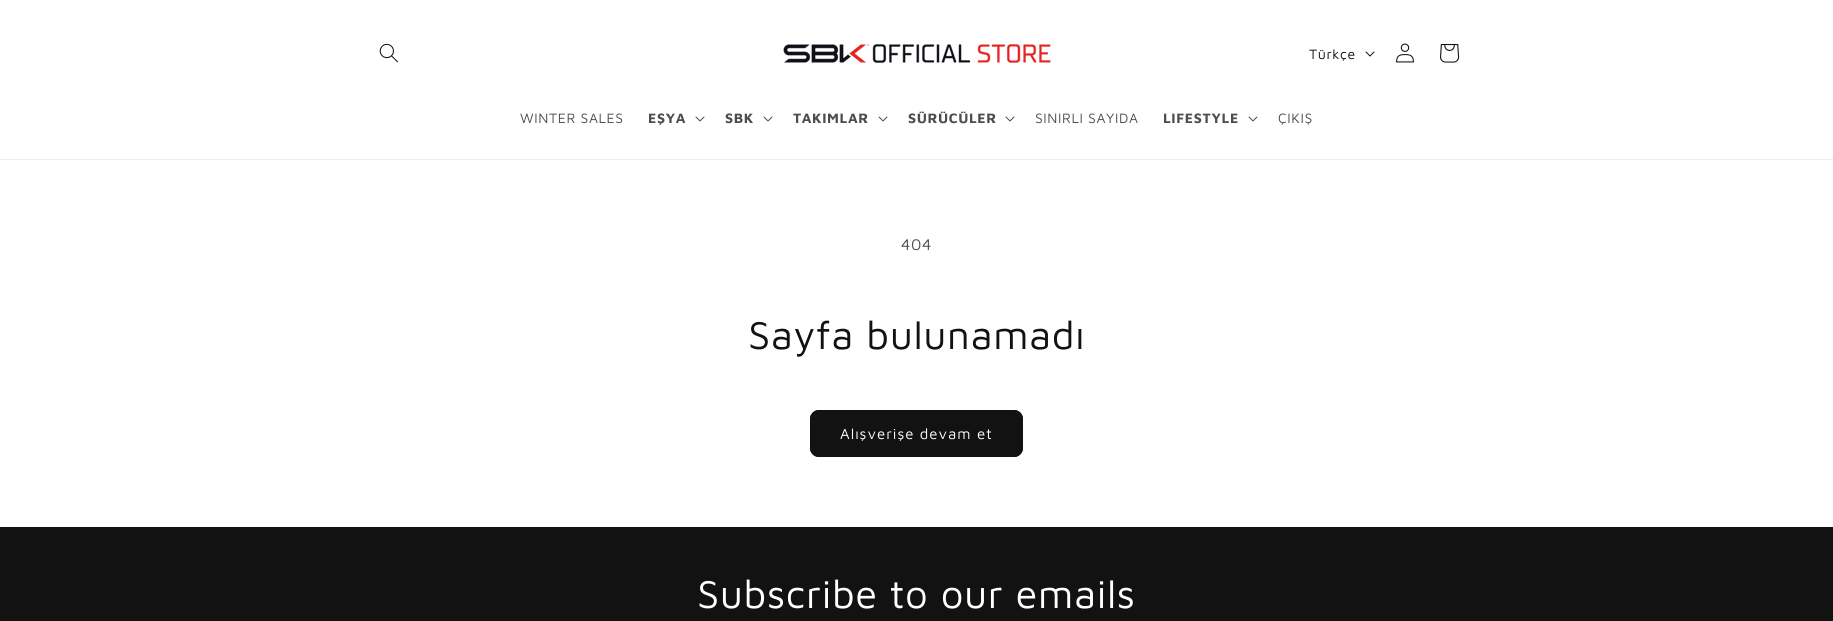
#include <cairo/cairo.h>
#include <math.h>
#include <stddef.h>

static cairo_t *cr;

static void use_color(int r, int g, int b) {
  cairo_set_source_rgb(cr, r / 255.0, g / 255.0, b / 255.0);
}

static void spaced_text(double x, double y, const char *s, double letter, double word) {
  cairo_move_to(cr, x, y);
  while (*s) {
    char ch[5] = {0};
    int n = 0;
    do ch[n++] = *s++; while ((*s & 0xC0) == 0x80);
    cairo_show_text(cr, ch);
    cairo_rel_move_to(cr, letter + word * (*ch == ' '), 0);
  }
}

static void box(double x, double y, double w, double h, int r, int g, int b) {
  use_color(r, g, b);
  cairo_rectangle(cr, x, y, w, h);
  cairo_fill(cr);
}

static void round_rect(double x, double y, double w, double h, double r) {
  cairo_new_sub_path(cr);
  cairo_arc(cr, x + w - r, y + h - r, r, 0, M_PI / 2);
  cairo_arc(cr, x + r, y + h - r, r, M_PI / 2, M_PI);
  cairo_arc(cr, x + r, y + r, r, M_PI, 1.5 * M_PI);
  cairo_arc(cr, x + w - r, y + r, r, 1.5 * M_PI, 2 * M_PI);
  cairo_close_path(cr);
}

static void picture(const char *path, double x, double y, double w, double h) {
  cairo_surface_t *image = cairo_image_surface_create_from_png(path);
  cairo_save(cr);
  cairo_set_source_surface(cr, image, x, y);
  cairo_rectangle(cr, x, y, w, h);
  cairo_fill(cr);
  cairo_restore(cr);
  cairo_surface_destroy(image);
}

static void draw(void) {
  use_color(255, 255, 255);
  cairo_paint(cr);
  box(0, 159, 1833, 1, 236, 236, 236);
  picture("img_01.png", 379, 43, 19, 20);
  picture("img_02.png", 783, 44, 268, 19);
  picture("img_03.png", 1365, 51, 10, 6);
  picture("img_04.png", 1396, 43, 18, 20);
  picture("img_05.png", 1440, 44, 20, 19);
  picture("img_06.png", 695, 116, 10, 6);
  picture("img_06.png", 763, 116, 10, 6);
  picture("img_06.png", 878, 116, 10, 6);
  picture("img_06.png", 1005, 116, 10, 6);
  picture("img_06.png", 1248, 116, 10, 6);
  use_color(18, 18, 18);
  round_rect(810, 410, 213, 47, 9);
  cairo_fill(cr);
  round_rect(810.5, 410.5, 212, 46, 8.5);
  cairo_set_line_width(cr, 1);
  cairo_stroke(cr);
  box(0, 527, 1833, 94, 18, 18, 18);
  cairo_select_font_face(cr, "Maven Pro", CAIRO_FONT_SLANT_NORMAL, CAIRO_FONT_WEIGHT_NORMAL);
  cairo_set_font_size(cr, 14);
  spaced_text(1309, 59, "Türkçe", 0.6, 0);
  use_color(77, 77, 77);
  spaced_text(520, 123, "WINTER SALES", 0.6, 0);
  cairo_select_font_face(cr, "Maven Pro", CAIRO_FONT_SLANT_NORMAL, CAIRO_FONT_WEIGHT_BOLD);
  spaced_text(648, 123, "EŞYA", 0.6, 0);
  spaced_text(725, 123, "SBK", 0.6, 0);
  spaced_text(793, 123, "TAKIMLAR", 0.6, 0);
  spaced_text(908, 123, "SÜRÜCÜLER", 0.6, 0);
  cairo_select_font_face(cr, "Maven Pro", CAIRO_FONT_SLANT_NORMAL, CAIRO_FONT_WEIGHT_NORMAL);
  spaced_text(1035, 123, "SINIRLI SAYIDA", 0.6, 0);
  cairo_select_font_face(cr, "Maven Pro", CAIRO_FONT_SLANT_NORMAL, CAIRO_FONT_WEIGHT_BOLD);
  spaced_text(1163, 123, "LIFESTYLE", 0.6, 0);
  cairo_select_font_face(cr, "Maven Pro", CAIRO_FONT_SLANT_NORMAL, CAIRO_FONT_WEIGHT_NORMAL);
  spaced_text(1278, 123, "ÇIKIŞ", 0.6, 0);
  cairo_set_font_size(cr, 16);
  spaced_text(901, 250, "404", 0.6, 0);
  cairo_set_font_size(cr, 40);
  use_color(18, 18, 18);
  spaced_text(748, 349, "Sayfa bulunamadı", 0.6, 0);
  cairo_set_font_size(cr, 15);
  use_color(255, 255, 255);
  spaced_text(840, 439, "Alışverişe devam et", 1, 0);
  cairo_set_font_size(cr, 40);
  spaced_text(697, 608, "Subscribe to our emails", 0.6, 0);
}

int main(void) {
  cairo_surface_t *surface = cairo_image_surface_create(CAIRO_FORMAT_RGB24, 1833, 621);
  cr = cairo_create(surface);
  cairo_font_options_t *options = cairo_font_options_create();
  cairo_font_options_set_hint_metrics(options, CAIRO_HINT_METRICS_OFF);
  cairo_font_options_set_hint_style(options, CAIRO_HINT_STYLE_NONE);
  cairo_set_font_options(cr, options);
  cairo_set_miter_limit(cr, 4);
  draw();
  cairo_surface_write_to_png(surface, "out.png");
  cairo_font_options_destroy(options);
  cairo_destroy(cr);
  cairo_surface_destroy(surface);
  return 0;
}
